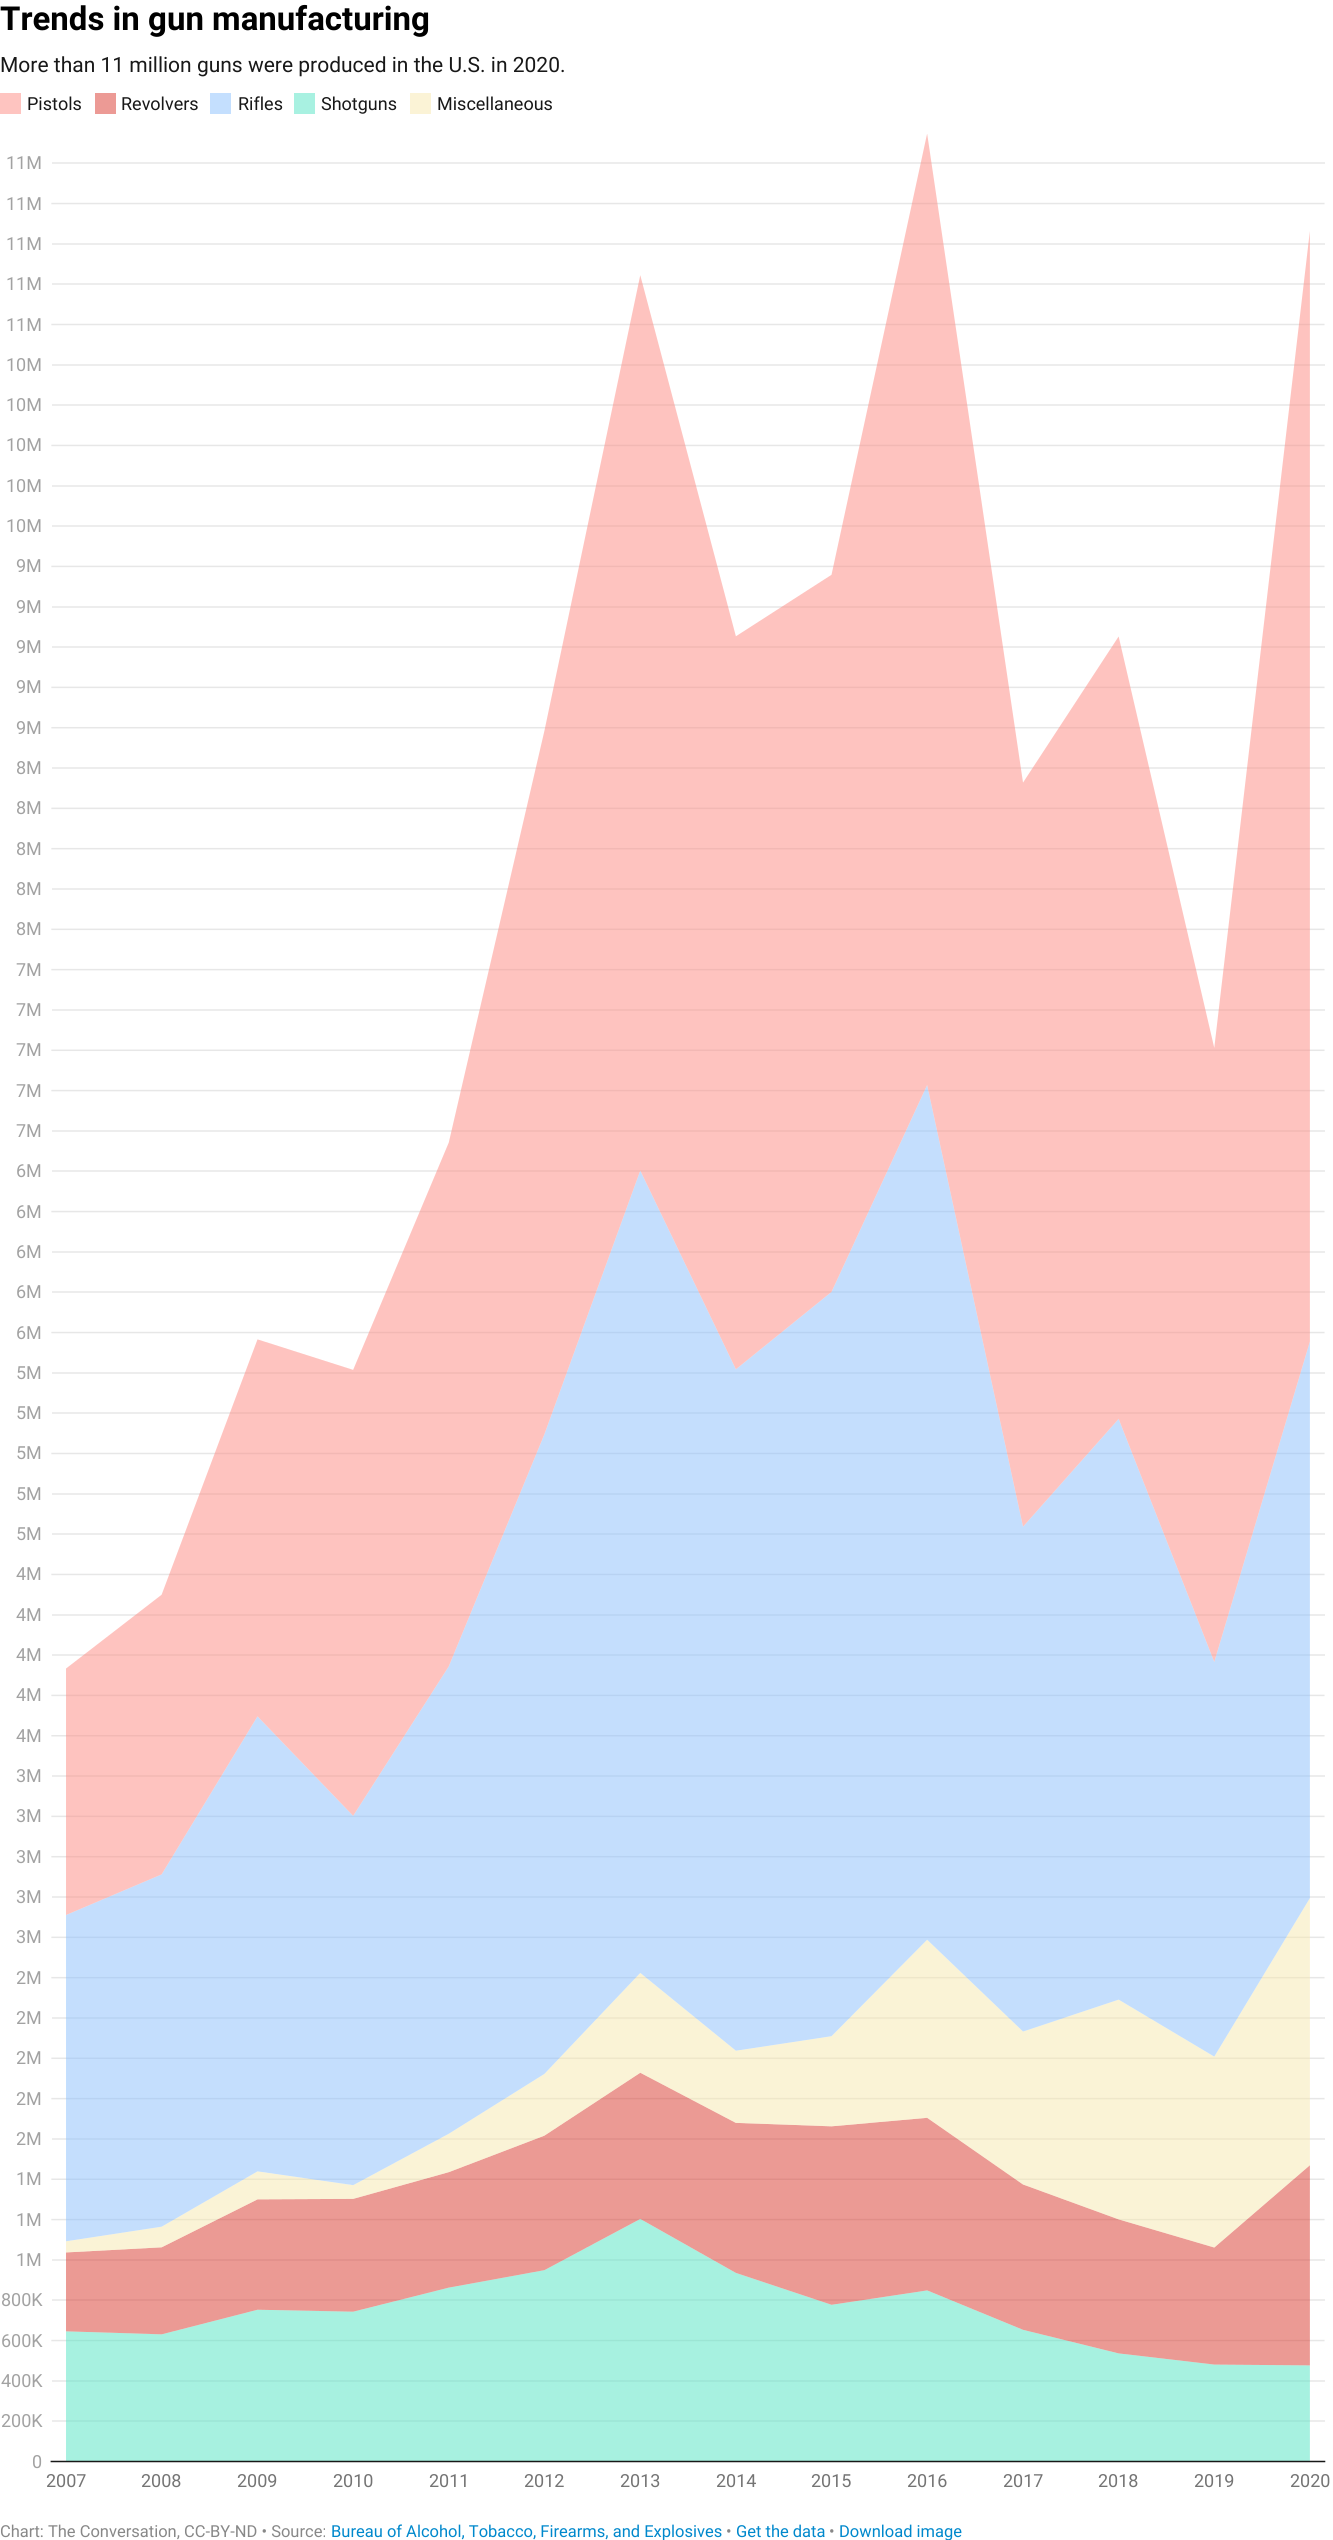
#include <cairo/cairo.h>
#include <math.h>
#include <stddef.h>

static cairo_t *cr;

static void use_color(int r, int g, int b) {
  cairo_set_source_rgb(cr, r / 255.0, g / 255.0, b / 255.0);
}

static void text(double x, double y, const char *s, const char *family, double size, int italic, int bold, int r, int g, int b) {
  cairo_select_font_face(cr, family, italic ? CAIRO_FONT_SLANT_ITALIC : CAIRO_FONT_SLANT_NORMAL,
    bold ? CAIRO_FONT_WEIGHT_BOLD : CAIRO_FONT_WEIGHT_NORMAL);
  cairo_set_font_size(cr, size);
  use_color(r, g, b);
  cairo_move_to(cr, x, y);
  cairo_show_text(cr, s);
}

static void box(double x, double y, double w, double h, int r, int g, int b) {
  use_color(r, g, b);
  cairo_rectangle(cr, x, y, w, h);
  cairo_fill(cr);
}

static void picture(const char *path, double x, double y, double w, double h) {
  cairo_surface_t *image = cairo_image_surface_create_from_png(path);
  cairo_save(cr);
  cairo_set_source_surface(cr, image, x, y);
  cairo_rectangle(cr, x, y, w, h);
  cairo_fill(cr);
  cairo_restore(cr);
  cairo_surface_destroy(image);
}

static void draw(void) {
  use_color(255, 255, 255);
  cairo_paint(cr);
  box(0, 93, 21, 21, 254, 196, 192);
  box(95, 93, 21, 21, 236, 154, 149);
  box(210, 93, 21, 21, 196, 223, 254);
  box(294, 93, 21, 21, 168, 241, 225);
  box(410, 93, 21, 21, 251, 243, 214);
  picture("img_01.png", 50, 134, 1276, 2329);
  text(0, 30, "Trends in gun manufacturing", "Roboto", 33, 0, 1, 0, 0, 0);
  text(0, 72, "More than 11 million guns were produced in the U.S. in 2020.", "Roboto", 21, 0, 0, 24, 24, 24);
  text(27, 110, "Pistols", "Roboto", 18, 0, 0, 24, 24, 24);
  text(121, 110, "Revolvers", "Roboto", 18, 0, 0, 24, 24, 24);
  text(238, 110, "Rifles", "Roboto", 18, 0, 0, 24, 24, 24);
  text(321, 110, "Shotguns", "Roboto", 18, 0, 0, 24, 24, 24);
  text(437, 110, "Miscellaneous", "Roboto", 18, 0, 0, 24, 24, 24);
  text(6, 169, "11M", "Roboto", 18, 0, 0, 162, 162, 162);
  text(6, 210, "11M", "Roboto", 18, 0, 0, 162, 162, 162);
  text(6, 250, "11M", "Roboto", 18, 0, 0, 162, 162, 162);
  text(6, 290, "11M", "Roboto", 18, 0, 0, 162, 162, 162);
  text(6, 331, "11M", "Roboto", 18, 0, 0, 162, 162, 162);
  text(6, 371, "10M", "Roboto", 18, 0, 0, 162, 162, 162);
  text(6, 411, "10M", "Roboto", 18, 0, 0, 162, 162, 162);
  text(6, 451, "10M", "Roboto", 18, 0, 0, 162, 162, 162);
  text(6, 492, "10M", "Roboto", 18, 0, 0, 162, 162, 162);
  text(6, 532, "10M", "Roboto", 18, 0, 0, 162, 162, 162);
  text(16, 572, "9M", "Roboto", 18, 0, 0, 162, 162, 162);
  text(16, 613, "9M", "Roboto", 18, 0, 0, 162, 162, 162);
  text(16, 653, "9M", "Roboto", 18, 0, 0, 162, 162, 162);
  text(16, 693, "9M", "Roboto", 18, 0, 0, 162, 162, 162);
  text(16, 734, "9M", "Roboto", 18, 0, 0, 162, 162, 162);
  text(16, 774, "8M", "Roboto", 18, 0, 0, 162, 162, 162);
  text(16, 814, "8M", "Roboto", 18, 0, 0, 162, 162, 162);
  text(16, 855, "8M", "Roboto", 18, 0, 0, 162, 162, 162);
  text(16, 895, "8M", "Roboto", 18, 0, 0, 162, 162, 162);
  text(16, 935, "8M", "Roboto", 18, 0, 0, 162, 162, 162);
  text(16, 976, "7M", "Roboto", 18, 0, 0, 162, 162, 162);
  text(16, 1016, "7M", "Roboto", 18, 0, 0, 162, 162, 162);
  text(16, 1056, "7M", "Roboto", 18, 0, 0, 162, 162, 162);
  text(16, 1097, "7M", "Roboto", 18, 0, 0, 162, 162, 162);
  text(16, 1137, "7M", "Roboto", 18, 0, 0, 162, 162, 162);
  text(16, 1177, "6M", "Roboto", 18, 0, 0, 162, 162, 162);
  text(16, 1218, "6M", "Roboto", 18, 0, 0, 162, 162, 162);
  text(16, 1258, "6M", "Roboto", 18, 0, 0, 162, 162, 162);
  text(16, 1298, "6M", "Roboto", 18, 0, 0, 162, 162, 162);
  text(16, 1339, "6M", "Roboto", 18, 0, 0, 162, 162, 162);
  text(16, 1379, "5M", "Roboto", 18, 0, 0, 162, 162, 162);
  text(16, 1419, "5M", "Roboto", 18, 0, 0, 162, 162, 162);
  text(16, 1459, "5M", "Roboto", 18, 0, 0, 162, 162, 162);
  text(16, 1500, "5M", "Roboto", 18, 0, 0, 162, 162, 162);
  text(16, 1540, "5M", "Roboto", 18, 0, 0, 162, 162, 162);
  text(16, 1580, "4M", "Roboto", 18, 0, 0, 162, 162, 162);
  text(16, 1621, "4M", "Roboto", 18, 0, 0, 162, 162, 162);
  text(16, 1661, "4M", "Roboto", 18, 0, 0, 162, 162, 162);
  text(16, 1701, "4M", "Roboto", 18, 0, 0, 162, 162, 162);
  text(16, 1742, "4M", "Roboto", 18, 0, 0, 162, 162, 162);
  text(16, 1782, "3M", "Roboto", 18, 0, 0, 162, 162, 162);
  text(16, 1822, "3M", "Roboto", 18, 0, 0, 162, 162, 162);
  text(16, 1863, "3M", "Roboto", 18, 0, 0, 162, 162, 162);
  text(16, 1903, "3M", "Roboto", 18, 0, 0, 162, 162, 162);
  text(16, 1943, "3M", "Roboto", 18, 0, 0, 162, 162, 162);
  text(16, 1984, "2M", "Roboto", 18, 0, 0, 162, 162, 162);
  text(16, 2024, "2M", "Roboto", 18, 0, 0, 162, 162, 162);
  text(16, 2064, "2M", "Roboto", 18, 0, 0, 162, 162, 162);
  text(16, 2105, "2M", "Roboto", 18, 0, 0, 162, 162, 162);
  text(16, 2145, "2M", "Roboto", 18, 0, 0, 162, 162, 162);
  text(16, 2185, "1M", "Roboto", 18, 0, 0, 162, 162, 162);
  text(16, 2226, "1M", "Roboto", 18, 0, 0, 162, 162, 162);
  text(16, 2266, "1M", "Roboto", 18, 0, 0, 162, 162, 162);
  text(1, 2306, "800K", "Roboto", 18, 0, 0, 162, 162, 162);
  text(1, 2347, "600K", "Roboto", 18, 0, 0, 162, 162, 162);
  text(1, 2387, "400K", "Roboto", 18, 0, 0, 162, 162, 162);
  text(1, 2427, "200K", "Roboto", 18, 0, 0, 162, 162, 162);
  text(32, 2468, "0", "Roboto", 18, 0, 0, 162, 162, 162);
  text(46, 2487, "2007", "Roboto", 18, 0, 0, 116, 116, 116);
  text(141, 2487, "2008", "Roboto", 18, 0, 0, 116, 116, 116);
  text(237, 2487, "2009", "Roboto", 18, 0, 0, 116, 116, 116);
  text(333, 2487, "2010", "Roboto", 18, 0, 0, 116, 116, 116);
  text(429, 2487, "2011", "Roboto", 18, 0, 0, 116, 116, 116);
  text(524, 2487, "2012", "Roboto", 18, 0, 0, 116, 116, 116);
  text(620, 2487, "2013", "Roboto", 18, 0, 0, 116, 116, 116);
  text(716, 2487, "2014", "Roboto", 18, 0, 0, 116, 116, 116);
  text(811, 2487, "2015", "Roboto", 18, 0, 0, 116, 116, 116);
  text(907, 2487, "2016", "Roboto", 18, 0, 0, 116, 116, 116);
  text(1003, 2487, "2017", "Roboto", 18, 0, 0, 116, 116, 116);
  text(1098, 2487, "2018", "Roboto", 18, 0, 0, 116, 116, 116);
  text(1194, 2487, "2019", "Roboto", 18, 0, 0, 116, 116, 116);
  text(1290, 2487, "2020", "Roboto", 18, 0, 0, 116, 116, 116);
  text(0, 2537, "Chart: The Conversation, CC-BY-ND • Source:", "Roboto", 16.5, 0, 0, 136, 136, 136);
  text(331, 2537, "Bureau of Alcohol, Tobacco, Firearms, and Explosives", "Roboto", 16.5, 0, 0, 0, 136, 204);
  text(726, 2537, "•", "Roboto", 16.5, 0, 0, 136, 136, 136);
  text(736, 2537, "Get the data", "Roboto", 16.5, 0, 0, 0, 136, 204);
  text(829, 2537, "•", "Roboto", 16.5, 0, 0, 136, 136, 136);
  text(839, 2537, "Download image", "Roboto", 16.5, 0, 0, 0, 136, 204);
}

int main(void) {
  cairo_surface_t *surface = cairo_image_surface_create(CAIRO_FORMAT_RGB24, 1333, 2540);
  cr = cairo_create(surface);
  cairo_font_options_t *options = cairo_font_options_create();
  cairo_font_options_set_hint_metrics(options, CAIRO_HINT_METRICS_OFF);
  cairo_font_options_set_hint_style(options, CAIRO_HINT_STYLE_NONE);
  cairo_set_font_options(cr, options);
  cairo_set_miter_limit(cr, 4);
  draw();
  cairo_surface_write_to_png(surface, "out.png");
  cairo_font_options_destroy(options);
  cairo_destroy(cr);
  cairo_surface_destroy(surface);
  return 0;
}
